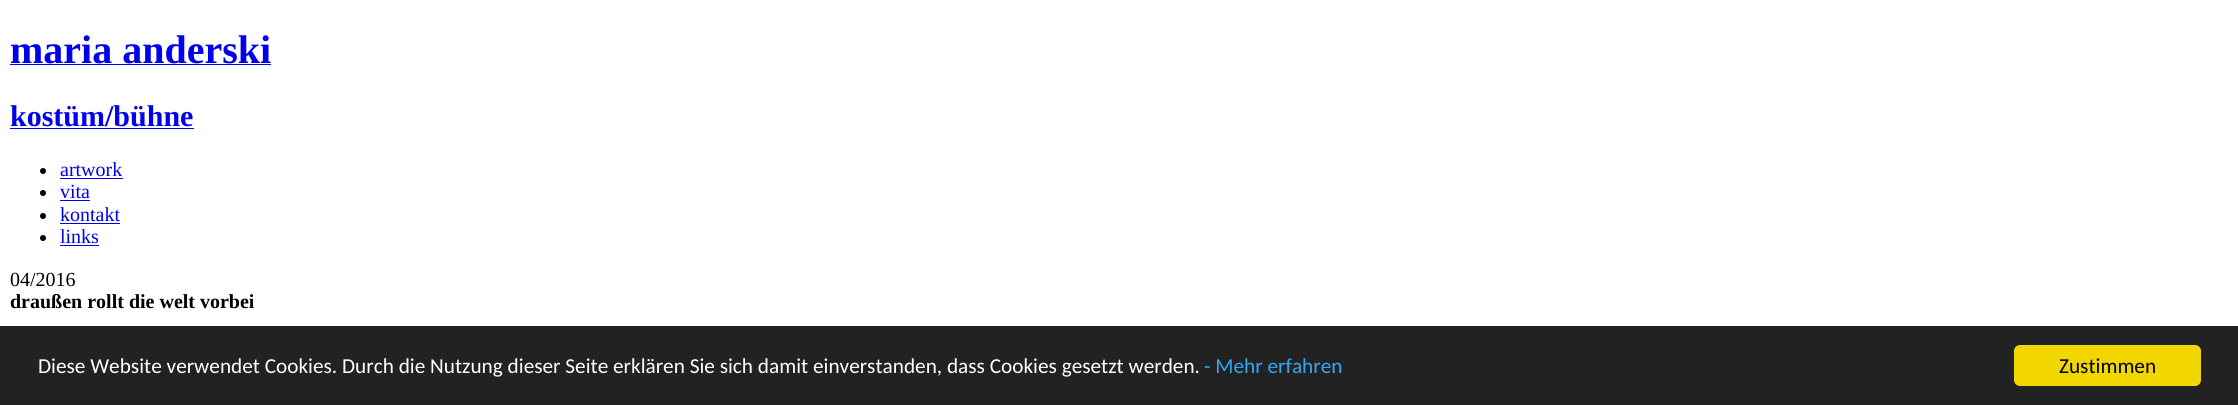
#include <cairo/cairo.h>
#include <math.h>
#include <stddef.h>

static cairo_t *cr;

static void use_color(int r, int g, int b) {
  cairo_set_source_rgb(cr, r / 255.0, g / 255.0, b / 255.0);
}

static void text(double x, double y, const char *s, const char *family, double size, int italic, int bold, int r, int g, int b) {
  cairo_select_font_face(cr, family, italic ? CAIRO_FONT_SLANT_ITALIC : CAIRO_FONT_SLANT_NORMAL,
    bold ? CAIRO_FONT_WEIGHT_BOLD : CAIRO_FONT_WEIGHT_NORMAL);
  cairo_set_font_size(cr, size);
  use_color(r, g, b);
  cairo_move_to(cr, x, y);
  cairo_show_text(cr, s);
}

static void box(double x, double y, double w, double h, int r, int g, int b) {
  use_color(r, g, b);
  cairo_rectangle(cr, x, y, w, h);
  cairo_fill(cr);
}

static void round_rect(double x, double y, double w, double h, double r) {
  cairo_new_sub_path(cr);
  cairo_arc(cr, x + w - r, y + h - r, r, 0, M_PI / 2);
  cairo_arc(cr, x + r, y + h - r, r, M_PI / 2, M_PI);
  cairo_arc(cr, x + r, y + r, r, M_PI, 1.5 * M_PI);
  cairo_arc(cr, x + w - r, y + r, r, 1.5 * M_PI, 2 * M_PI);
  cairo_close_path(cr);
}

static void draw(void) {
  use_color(255, 255, 255);
  cairo_paint(cr);
  box(10, 64, 261, 1, 0, 0, 238);
  box(10, 128, 184, 1, 0, 0, 238);
  use_color(0, 0, 0);
  cairo_arc(cr, 43, 171, 3, 0, 2 * M_PI);
  cairo_fill(cr);
  box(60, 178, 63, 1, 0, 0, 238);
  use_color(0, 0, 0);
  cairo_arc(cr, 43, 193, 3, 0, 2 * M_PI);
  cairo_fill(cr);
  box(60, 200, 30, 1, 0, 0, 238);
  use_color(0, 0, 0);
  cairo_arc(cr, 43, 216, 3, 0, 2 * M_PI);
  cairo_fill(cr);
  box(60, 223, 60, 1, 0, 0, 238);
  use_color(0, 0, 0);
  cairo_arc(cr, 43, 238, 3, 0, 2 * M_PI);
  cairo_fill(cr);
  box(60, 245, 39, 1, 0, 0, 238);
  box(0, 326, 2238, 79, 34, 34, 34);
  use_color(241, 214, 0);
  round_rect(2014, 345, 187, 41, 6);
  cairo_fill(cr);
  text(10, 63, "maria anderski", "Liberation Serif", 40, 0, 1, 0, 0, 238);
  text(10, 126, "kostüm/bühne", "Liberation Serif", 30, 0, 1, 0, 0, 238);
  text(60, 176, "artwork", "Liberation Serif", 20, 0, 0, 0, 0, 238);
  text(60, 198, "vita", "Liberation Serif", 20, 0, 0, 0, 0, 238);
  text(60, 221, "kontakt", "Liberation Serif", 20, 0, 0, 0, 0, 238);
  text(60, 243, "links", "Liberation Serif", 20, 0, 0, 0, 0, 238);
  text(10, 286, "04/2016", "Liberation Serif", 20, 0, 0, 0, 0, 0);
  text(10, 308, "draußen rollt die welt vorbei", "Liberation Serif", 20, 0, 1, 0, 0, 0);
  text(38, 373, "Diese Website verwendet Cookies. Durch die Nutzung dieser Seite erklären Sie sich damit einverstanden, dass Cookies gesetzt werden.", "Carlito", 21.25, 0, 0, 255, 255, 255);
  text(1204, 373, "- Mehr erfahren", "Carlito", 21.25, 0, 0, 49, 168, 240);
  text(2059, 373, "Zustimmen", "Carlito", 21.25, 0, 0, 0, 0, 0);
}

int main(void) {
  cairo_surface_t *surface = cairo_image_surface_create(CAIRO_FORMAT_RGB24, 2238, 405);
  cr = cairo_create(surface);
  cairo_font_options_t *options = cairo_font_options_create();
  cairo_font_options_set_hint_metrics(options, CAIRO_HINT_METRICS_OFF);
  cairo_font_options_set_hint_style(options, CAIRO_HINT_STYLE_NONE);
  cairo_set_font_options(cr, options);
  cairo_set_miter_limit(cr, 4);
  draw();
  cairo_surface_write_to_png(surface, "out.png");
  cairo_font_options_destroy(options);
  cairo_destroy(cr);
  cairo_surface_destroy(surface);
  return 0;
}
